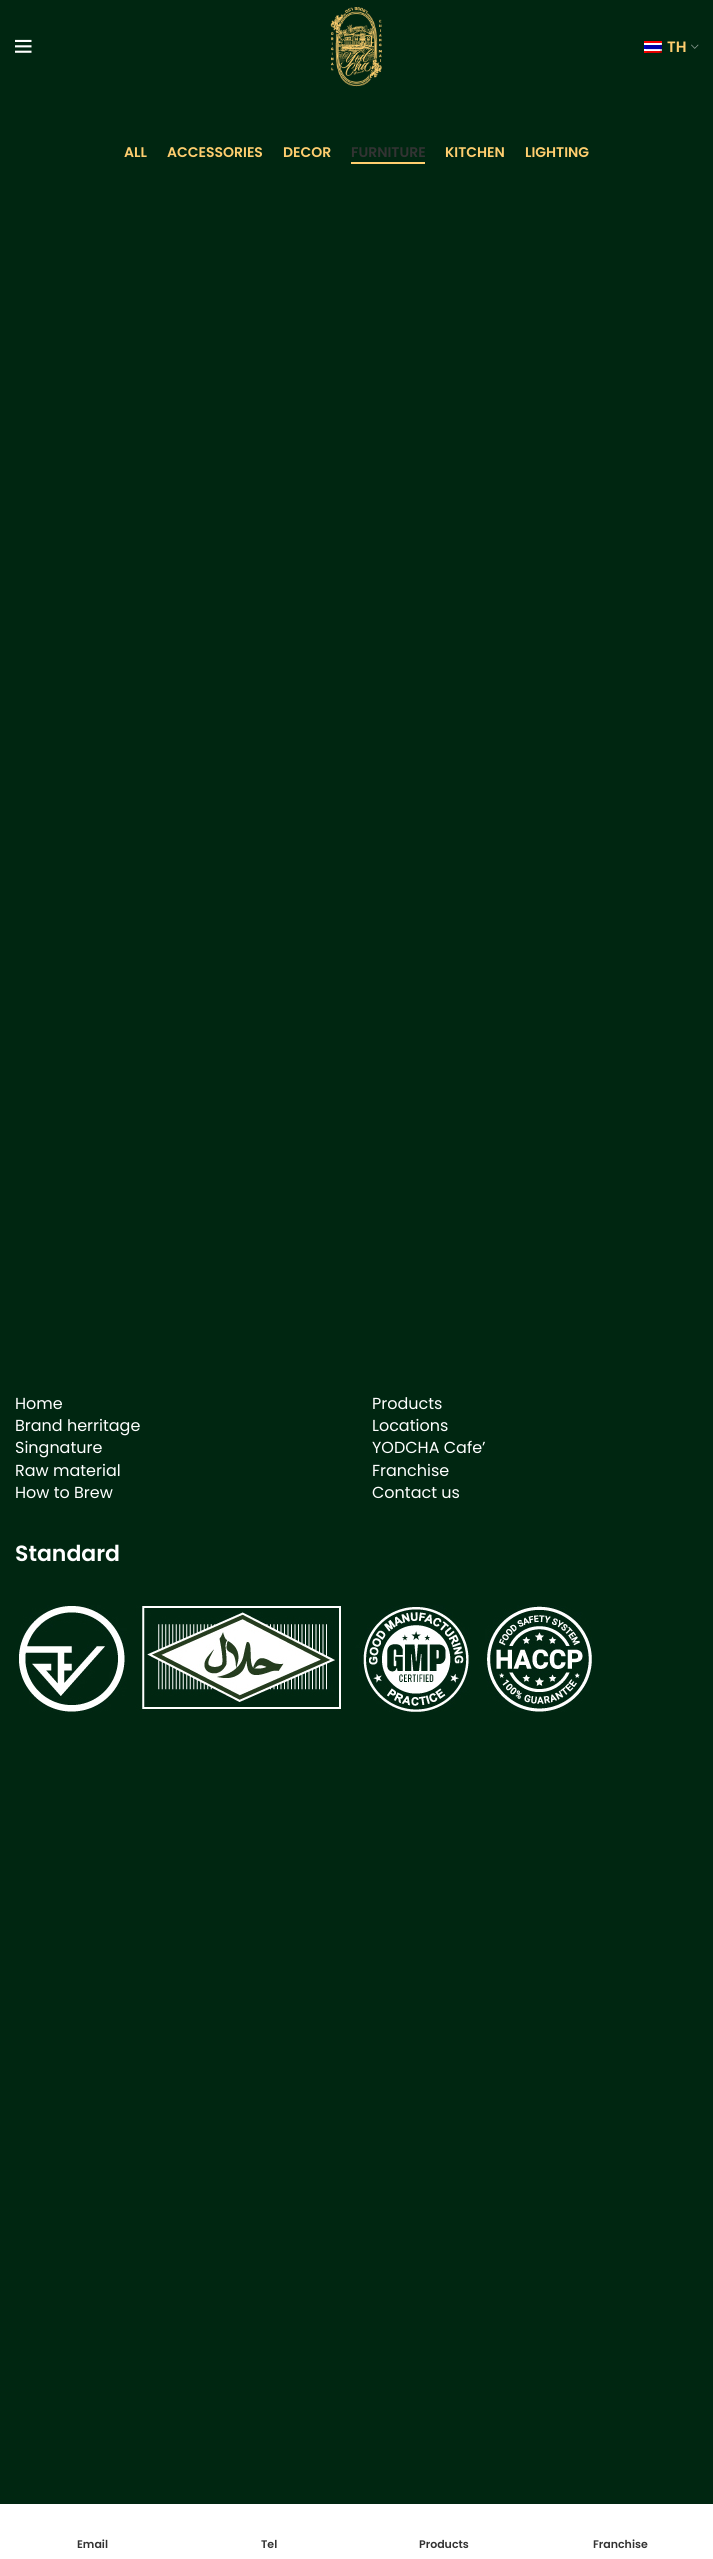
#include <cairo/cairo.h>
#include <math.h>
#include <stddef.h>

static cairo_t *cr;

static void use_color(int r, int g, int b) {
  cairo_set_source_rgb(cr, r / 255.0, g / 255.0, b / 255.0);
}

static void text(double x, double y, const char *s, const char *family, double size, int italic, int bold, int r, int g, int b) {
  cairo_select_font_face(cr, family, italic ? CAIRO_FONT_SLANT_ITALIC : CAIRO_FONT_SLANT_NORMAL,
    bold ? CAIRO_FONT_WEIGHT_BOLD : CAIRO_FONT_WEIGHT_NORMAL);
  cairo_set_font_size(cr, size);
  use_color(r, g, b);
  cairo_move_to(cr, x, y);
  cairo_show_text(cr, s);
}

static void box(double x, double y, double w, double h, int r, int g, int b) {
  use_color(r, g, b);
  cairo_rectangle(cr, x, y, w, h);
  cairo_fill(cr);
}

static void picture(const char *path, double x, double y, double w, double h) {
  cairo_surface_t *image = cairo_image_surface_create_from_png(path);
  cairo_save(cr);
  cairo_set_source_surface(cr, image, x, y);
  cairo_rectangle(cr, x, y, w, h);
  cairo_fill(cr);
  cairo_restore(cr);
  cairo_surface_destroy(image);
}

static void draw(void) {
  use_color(0, 38, 17);
  cairo_paint(cr);
  picture("img_01.png", 15, 39, 17, 14);
  picture("img_02.png", 330, 7, 52, 80);
  picture("img_03.png", 644, 41, 18, 12);
  picture("img_04.png", 691, 44, 8, 5);
  box(351, 162, 74, 2, 255, 206, 111);
  picture("img_05.png", 19, 1605, 573, 107);
  box(0, 2504, 713, 55, 255, 255, 255);
  text(667, 52, "TH", "Poppins SemiBold", 15, 0, 0, 255, 206, 111);
  text(124, 157, "ALL", "Poppins SemiBold", 14, 0, 0, 255, 206, 111);
  text(167, 157, "ACCESSORIES", "Poppins SemiBold", 14, 0, 0, 255, 206, 111);
  text(283, 157, "DECOR", "Poppins SemiBold", 14, 0, 0, 255, 206, 111);
  text(351, 157, "FURNITURE", "Poppins SemiBold", 14, 0, 0, 51, 51, 51);
  text(445, 157, "KITCHEN", "Poppins SemiBold", 14, 0, 0, 255, 206, 111);
  text(525, 157, "LIGHTING", "Poppins SemiBold", 14, 0, 0, 255, 206, 111);
  text(15, 1409, "Home", "Poppins", 16, 0, 0, 255, 255, 255);
  text(15, 1431, "Brand herritage", "Poppins", 16, 0, 0, 255, 255, 255);
  text(15, 1453, "Singnature", "Poppins", 16, 0, 0, 255, 255, 255);
  text(15, 1476, "Raw material", "Poppins", 16, 0, 0, 255, 255, 255);
  text(15, 1498, "How to Brew", "Poppins", 16, 0, 0, 255, 255, 255);
  text(372, 1409, "Products", "Poppins", 16, 0, 0, 255, 255, 255);
  text(372, 1431, "Locations", "Poppins", 16, 0, 0, 255, 255, 255);
  text(372, 1453, "YODCHA Cafe’", "Poppins", 16, 0, 0, 255, 255, 255);
  text(372, 1476, "Franchise", "Poppins", 16, 0, 0, 255, 255, 255);
  text(372, 1498, "Contact us", "Poppins", 16, 0, 0, 255, 255, 255);
  text(15, 1561, "Standard", "Poppins SemiBold", 22, 0, 0, 255, 255, 255);
  text(77, 2548, "Email", "Poppins SemiBold", 11, 0, 0, 51, 51, 51);
  text(261, 2548, "Tel", "Poppins SemiBold", 11, 0, 0, 51, 51, 51);
  text(419, 2548, "Products", "Poppins SemiBold", 11, 0, 0, 51, 51, 51);
  text(593, 2548, "Franchise", "Poppins SemiBold", 11, 0, 0, 51, 51, 51);
}

int main(void) {
  cairo_surface_t *surface = cairo_image_surface_create(CAIRO_FORMAT_RGB24, 713, 2559);
  cr = cairo_create(surface);
  cairo_font_options_t *options = cairo_font_options_create();
  cairo_font_options_set_hint_metrics(options, CAIRO_HINT_METRICS_OFF);
  cairo_font_options_set_hint_style(options, CAIRO_HINT_STYLE_NONE);
  cairo_set_font_options(cr, options);
  cairo_set_miter_limit(cr, 4);
  draw();
  cairo_surface_write_to_png(surface, "out.png");
  cairo_font_options_destroy(options);
  cairo_destroy(cr);
  cairo_surface_destroy(surface);
  return 0;
}
